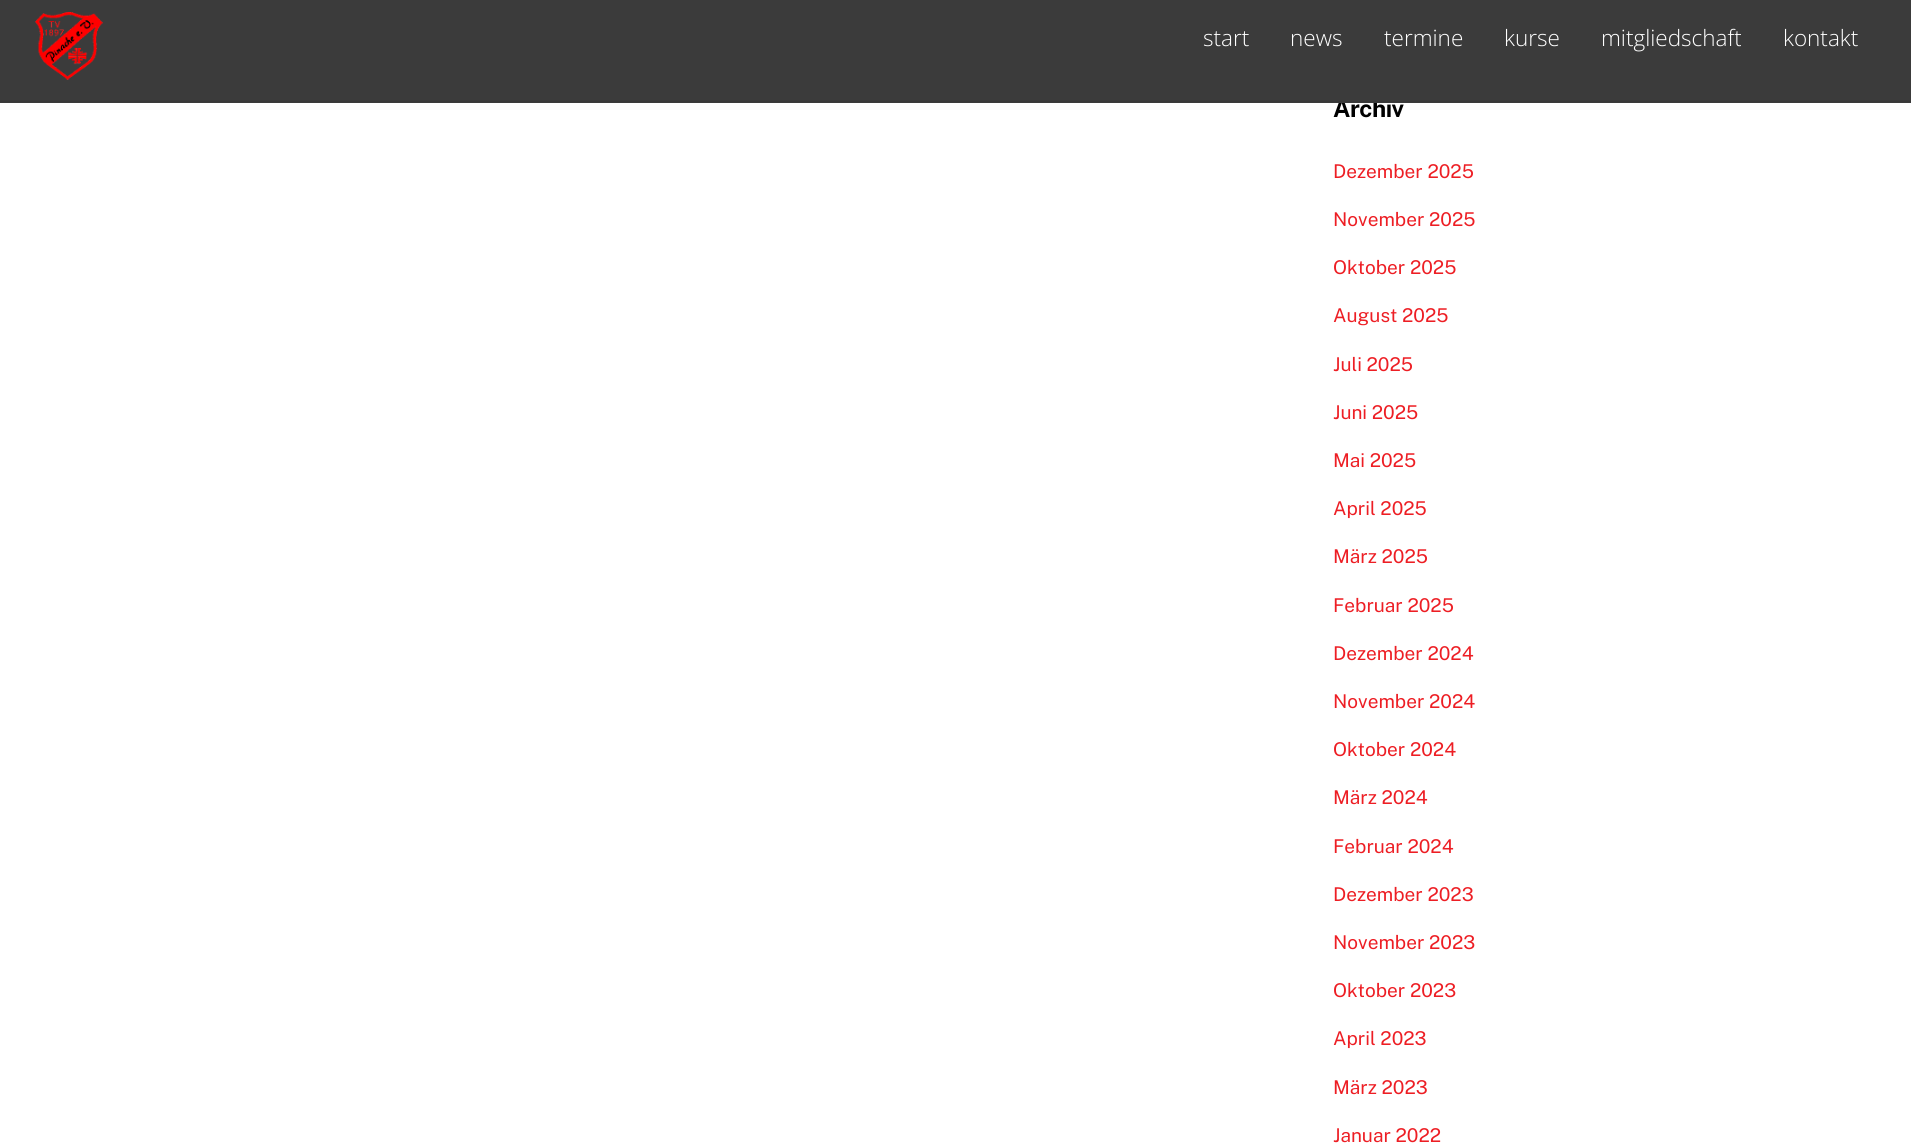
#include <cairo/cairo.h>
#include <math.h>
#include <stddef.h>

static cairo_t *cr;

static void use_color(int r, int g, int b) {
  cairo_set_source_rgb(cr, r / 255.0, g / 255.0, b / 255.0);
}

static void text(double x, double y, const char *s, const char *family, double size, int italic, int bold, int r, int g, int b) {
  cairo_select_font_face(cr, family, italic ? CAIRO_FONT_SLANT_ITALIC : CAIRO_FONT_SLANT_NORMAL,
    bold ? CAIRO_FONT_WEIGHT_BOLD : CAIRO_FONT_WEIGHT_NORMAL);
  cairo_set_font_size(cr, size);
  use_color(r, g, b);
  cairo_move_to(cr, x, y);
  cairo_show_text(cr, s);
}

static void spaced_text(double x, double y, const char *s, double letter, double word) {
  cairo_move_to(cr, x, y);
  while (*s) {
    char ch[5] = {0};
    int n = 0;
    do ch[n++] = *s++; while ((*s & 0xC0) == 0x80);
    cairo_show_text(cr, ch);
    cairo_rel_move_to(cr, letter + word * (*ch == ' '), 0);
  }
}

static void box(double x, double y, double w, double h, int r, int g, int b) {
  use_color(r, g, b);
  cairo_rectangle(cr, x, y, w, h);
  cairo_fill(cr);
}

static void picture(const char *path, double x, double y, double w, double h) {
  cairo_surface_t *image = cairo_image_surface_create_from_png(path);
  cairo_save(cr);
  cairo_set_source_surface(cr, image, x, y);
  cairo_rectangle(cr, x, y, w, h);
  cairo_fill(cr);
  cairo_restore(cr);
  cairo_surface_destroy(image);
}

static void draw(void) {
  use_color(255, 255, 255);
  cairo_paint(cr);
  cairo_select_font_face(cr, "Public Sans", CAIRO_FONT_SLANT_NORMAL, CAIRO_FONT_WEIGHT_BOLD);
  cairo_set_font_size(cr, 24);
  use_color(0, 0, 0);
  spaced_text(1333, 117, "Archiv", -0.5, 0);
  box(0, 0, 1911, 103, 59, 59, 59);
  text(1783, 46, "kontakt", "Open Sans Light", 22.5, 0, 0, 255, 255, 255);
  text(1601, 46, "mitgliedschaft", "Open Sans Light", 22.5, 0, 0, 255, 255, 255);
  text(1504, 46, "kurse", "Open Sans Light", 22.5, 0, 0, 255, 255, 255);
  text(1384, 46, "termine", "Open Sans Light", 22.5, 0, 0, 255, 255, 255);
  text(1290, 46, "news", "Open Sans Light", 22.5, 0, 0, 255, 255, 255);
  text(1203, 46, "start", "Open Sans Light", 22.5, 0, 0, 255, 255, 255);
  picture("img_01.png", 35, 12, 68, 68);
  box(0, 101, 1911, 1, 56, 56, 56);
  text(1333, 178, "Dezember 2025", "Public Sans", 19, 0, 0, 237, 30, 36);
  text(1333, 226, "November 2025", "Public Sans", 19, 0, 0, 237, 30, 36);
  text(1333, 274, "Oktober 2025", "Public Sans", 19, 0, 0, 237, 30, 36);
  text(1333, 322, "August 2025", "Public Sans", 19, 0, 0, 237, 30, 36);
  text(1333, 371, "Juli 2025", "Public Sans", 19, 0, 0, 237, 30, 36);
  text(1333, 419, "Juni 2025", "Public Sans", 19, 0, 0, 237, 30, 36);
  text(1333, 467, "Mai 2025", "Public Sans", 19, 0, 0, 237, 30, 36);
  text(1333, 515, "April 2025", "Public Sans", 19, 0, 0, 237, 30, 36);
  text(1333, 563, "März 2025", "Public Sans", 19, 0, 0, 237, 30, 36);
  text(1333, 612, "Februar 2025", "Public Sans", 19, 0, 0, 237, 30, 36);
  text(1333, 660, "Dezember 2024", "Public Sans", 19, 0, 0, 237, 30, 36);
  text(1333, 708, "November 2024", "Public Sans", 19, 0, 0, 237, 30, 36);
  text(1333, 756, "Oktober 2024", "Public Sans", 19, 0, 0, 237, 30, 36);
  text(1333, 804, "März 2024", "Public Sans", 19, 0, 0, 237, 30, 36);
  text(1333, 853, "Februar 2024", "Public Sans", 19, 0, 0, 237, 30, 36);
  text(1333, 901, "Dezember 2023", "Public Sans", 19, 0, 0, 237, 30, 36);
  text(1333, 949, "November 2023", "Public Sans", 19, 0, 0, 237, 30, 36);
  text(1333, 997, "Oktober 2023", "Public Sans", 19, 0, 0, 237, 30, 36);
  text(1333, 1045, "April 2023", "Public Sans", 19, 0, 0, 237, 30, 36);
  text(1333, 1094, "März 2023", "Public Sans", 19, 0, 0, 237, 30, 36);
  text(1333, 1142, "Januar 2022", "Public Sans", 19, 0, 0, 237, 30, 36);
}

int main(void) {
  cairo_surface_t *surface = cairo_image_surface_create(CAIRO_FORMAT_RGB24, 1911, 1146);
  cr = cairo_create(surface);
  cairo_font_options_t *options = cairo_font_options_create();
  cairo_font_options_set_hint_metrics(options, CAIRO_HINT_METRICS_OFF);
  cairo_font_options_set_hint_style(options, CAIRO_HINT_STYLE_NONE);
  cairo_set_font_options(cr, options);
  cairo_set_miter_limit(cr, 4);
  draw();
  cairo_surface_write_to_png(surface, "out.png");
  cairo_font_options_destroy(options);
  cairo_destroy(cr);
  cairo_surface_destroy(surface);
  return 0;
}
